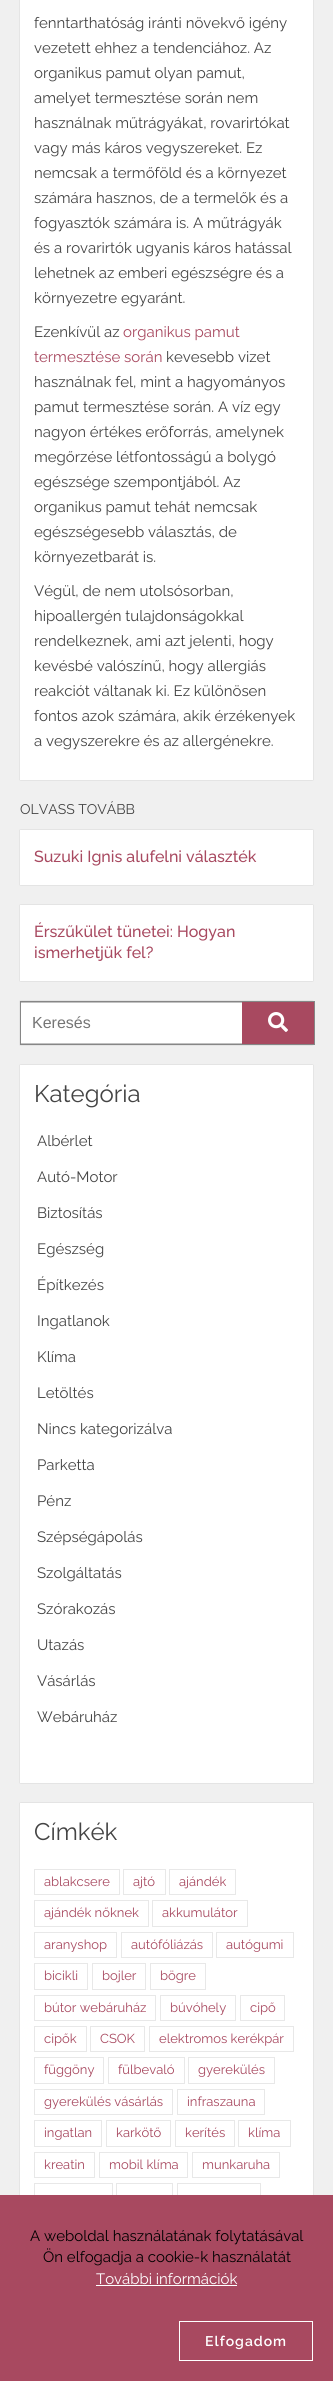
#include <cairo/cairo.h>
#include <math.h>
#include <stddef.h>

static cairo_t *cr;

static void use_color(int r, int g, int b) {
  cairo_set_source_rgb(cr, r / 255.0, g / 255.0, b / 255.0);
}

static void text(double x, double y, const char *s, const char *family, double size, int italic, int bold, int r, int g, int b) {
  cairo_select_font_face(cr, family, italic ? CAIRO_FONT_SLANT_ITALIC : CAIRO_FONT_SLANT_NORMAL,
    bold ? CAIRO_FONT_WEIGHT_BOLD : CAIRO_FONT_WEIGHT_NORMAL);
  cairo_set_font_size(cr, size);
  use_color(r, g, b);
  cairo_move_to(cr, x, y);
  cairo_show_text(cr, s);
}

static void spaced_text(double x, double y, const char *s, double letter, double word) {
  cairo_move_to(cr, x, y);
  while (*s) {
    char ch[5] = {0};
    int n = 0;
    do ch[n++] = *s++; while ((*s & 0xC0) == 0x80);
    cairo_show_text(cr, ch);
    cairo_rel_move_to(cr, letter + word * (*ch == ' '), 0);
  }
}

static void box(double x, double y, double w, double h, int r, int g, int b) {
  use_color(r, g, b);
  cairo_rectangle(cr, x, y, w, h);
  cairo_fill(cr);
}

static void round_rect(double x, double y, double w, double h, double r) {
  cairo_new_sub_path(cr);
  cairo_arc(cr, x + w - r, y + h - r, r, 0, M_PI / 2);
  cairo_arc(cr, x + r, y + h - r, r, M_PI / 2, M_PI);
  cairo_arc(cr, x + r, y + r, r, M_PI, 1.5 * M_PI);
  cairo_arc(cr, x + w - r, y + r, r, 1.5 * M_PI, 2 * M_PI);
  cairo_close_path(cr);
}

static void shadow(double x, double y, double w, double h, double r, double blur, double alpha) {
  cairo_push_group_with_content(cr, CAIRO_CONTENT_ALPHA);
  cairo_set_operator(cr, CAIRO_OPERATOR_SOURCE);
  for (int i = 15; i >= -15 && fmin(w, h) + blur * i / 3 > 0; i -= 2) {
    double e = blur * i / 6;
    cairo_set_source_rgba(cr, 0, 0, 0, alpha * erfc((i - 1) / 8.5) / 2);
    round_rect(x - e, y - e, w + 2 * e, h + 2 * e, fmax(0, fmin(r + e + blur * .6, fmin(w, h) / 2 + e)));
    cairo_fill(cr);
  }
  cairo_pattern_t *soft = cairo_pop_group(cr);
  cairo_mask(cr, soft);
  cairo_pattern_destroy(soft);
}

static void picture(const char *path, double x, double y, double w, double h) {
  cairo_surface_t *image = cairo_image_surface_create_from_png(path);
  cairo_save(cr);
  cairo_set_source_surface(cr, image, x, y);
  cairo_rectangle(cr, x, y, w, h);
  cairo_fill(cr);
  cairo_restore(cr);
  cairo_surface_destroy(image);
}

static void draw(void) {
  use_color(240, 240, 240);
  cairo_paint(cr);
  use_color(0, 0, 0);
  shadow(20, -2, 293, 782, 0, 0.5, 0.2);
  box(20, 0, 293, 780, 255, 255, 255);
  use_color(0, 0, 0);
  shadow(20, 830, 293, 55, 0, 0.5, 0.2);
  box(20, 830, 293, 55, 255, 255, 255);
  use_color(0, 0, 0);
  shadow(20, 905, 293, 76, 0, 0.5, 0.2);
  box(20, 905, 293, 76, 255, 255, 255);
  use_color(0, 0, 0);
  shadow(20, 1001, 293, 44, 0, 0.5, 0.2);
  cairo_rectangle(cr, 20.5, 1001.5, 294, 43);
  use_color(134, 134, 134);
  cairo_set_line_width(cr, 1);
  cairo_stroke(cr);
  box(21, 1003, 221, 40, 255, 255, 255);
  box(242, 1002, 72, 42, 168, 73, 96);
  picture("img_01.png", 268, 1012, 20, 20);
  use_color(0, 0, 0);
  shadow(20, 1065, 293, 718, 0, 0.5, 0.2);
  box(20, 1065, 293, 718, 255, 255, 255);
  use_color(0, 0, 0);
  shadow(20, 1803, 293, 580, 0, 0.5, 0.2);
  box(20, 1803, 293, 392, 255, 255, 255);
  cairo_rectangle(cr, 34.5, 1869.5, 85, 25);
  use_color(232, 232, 232);
  cairo_stroke(cr);
  cairo_rectangle(cr, 123.5, 1869.5, 42, 25);
  cairo_stroke(cr);
  cairo_rectangle(cr, 169.5, 1869.5, 66, 25);
  cairo_stroke(cr);
  cairo_rectangle(cr, 34.5, 1900.5, 114, 26);
  cairo_stroke(cr);
  cairo_rectangle(cr, 152.5, 1900.5, 95, 26);
  cairo_stroke(cr);
  cairo_rectangle(cr, 34.5, 1932.5, 82, 25);
  cairo_stroke(cr);
  cairo_rectangle(cr, 121.5, 1932.5, 91, 25);
  cairo_stroke(cr);
  cairo_rectangle(cr, 216.5, 1932.5, 77, 25);
  cairo_stroke(cr);
  cairo_rectangle(cr, 34.5, 1963.5, 53, 26);
  cairo_stroke(cr);
  cairo_rectangle(cr, 92.5, 1963.5, 53, 26);
  cairo_stroke(cr);
  cairo_rectangle(cr, 150.5, 1963.5, 55, 26);
  cairo_stroke(cr);
  cairo_rectangle(cr, 34.5, 1995.5, 121, 25);
  cairo_stroke(cr);
  cairo_rectangle(cr, 160.5, 1995.5, 75, 25);
  cairo_stroke(cr);
  cairo_rectangle(cr, 240.5, 1995.5, 44, 25);
  cairo_stroke(cr);
  cairo_rectangle(cr, 34.5, 2026.5, 52, 25);
  cairo_stroke(cr);
  cairo_rectangle(cr, 90.5, 2026.5, 54, 25);
  cairo_stroke(cr);
  cairo_rectangle(cr, 149.5, 2026.5, 144, 25);
  cairo_stroke(cr);
  cairo_rectangle(cr, 34.5, 2057.5, 69, 26);
  cairo_stroke(cr);
  cairo_rectangle(cr, 108.5, 2057.5, 76, 26);
  cairo_stroke(cr);
  cairo_rectangle(cr, 188.5, 2057.5, 86, 26);
  cairo_stroke(cr);
  cairo_rectangle(cr, 34.5, 2089.5, 138, 25);
  cairo_stroke(cr);
  cairo_rectangle(cr, 177.5, 2089.5, 87, 25);
  cairo_stroke(cr);
  cairo_rectangle(cr, 34.5, 2120.5, 67, 26);
  cairo_stroke(cr);
  cairo_rectangle(cr, 106.5, 2120.5, 64, 26);
  cairo_stroke(cr);
  cairo_rectangle(cr, 175.5, 2120.5, 59, 26);
  cairo_stroke(cr);
  cairo_rectangle(cr, 238.5, 2120.5, 52, 26);
  cairo_stroke(cr);
  cairo_rectangle(cr, 34.5, 2152.5, 60, 25);
  cairo_stroke(cr);
  cairo_rectangle(cr, 99.5, 2152.5, 88, 25);
  cairo_stroke(cr);
  cairo_rectangle(cr, 192.5, 2152.5, 87, 25);
  cairo_stroke(cr);
  cairo_rectangle(cr, 34.5, 2183.5, 78, 26);
  cairo_stroke(cr);
  cairo_rectangle(cr, 116.5, 2183.5, 56, 26);
  cairo_stroke(cr);
  cairo_rectangle(cr, 177.5, 2183.5, 83, 26);
  cairo_stroke(cr);
  box(0, 2195, 333, 186, 168, 73, 96);
  box(96, 2285, 141, 1, 255, 255, 255);
  cairo_rectangle(cr, 179.5, 2321.5, 133, 39);
  cairo_stroke(cr);
  text(34, 28, "fenntarthatóság iránti növekvő igény", "Raleway", 15, 0, 0, 68, 68, 68);
  text(34, 53, "vezetett ehhez a tendenciához. Az", "Raleway", 15, 0, 0, 68, 68, 68);
  text(34, 78, "organikus pamut olyan pamut,", "Raleway", 15, 0, 0, 68, 68, 68);
  text(34, 103, "amelyet termesztése során nem", "Raleway", 15, 0, 0, 68, 68, 68);
  text(34, 128, "használnak műtrágyákat, rovarirtókat", "Raleway", 15, 0, 0, 68, 68, 68);
  text(34, 153, "vagy más káros vegyszereket. Ez", "Raleway", 15, 0, 0, 68, 68, 68);
  text(34, 178, "nemcsak a termőföld és a környezet", "Raleway", 15, 0, 0, 68, 68, 68);
  text(34, 203, "számára hasznos, de a termelők és a", "Raleway", 15, 0, 0, 68, 68, 68);
  text(34, 228, "fogyasztók számára is. A műtrágyák", "Raleway", 15, 0, 0, 68, 68, 68);
  text(34, 253, "és a rovarirtók ugyanis káros hatással", "Raleway", 15, 0, 0, 68, 68, 68);
  text(34, 278, "lehetnek az emberi egészségre és a", "Raleway", 15, 0, 0, 68, 68, 68);
  text(34, 303, "környezetre egyaránt.", "Raleway", 15, 0, 0, 68, 68, 68);
  text(34, 337, "Ezenkívül az", "Raleway", 15, 0, 0, 68, 68, 68);
  text(123, 337, "organikus pamut", "Raleway", 15, 0, 0, 168, 73, 96);
  text(34, 362, "termesztése során", "Raleway", 15, 0, 0, 168, 73, 96);
  text(166, 362, "kevesebb vizet", "Raleway", 15, 0, 0, 68, 68, 68);
  text(34, 387, "használnak fel, mint a hagyományos", "Raleway", 15, 0, 0, 68, 68, 68);
  text(34, 412, "pamut termesztése során. A víz egy", "Raleway", 15, 0, 0, 68, 68, 68);
  text(34, 437, "nagyon értékes erőforrás, amelynek", "Raleway", 15, 0, 0, 68, 68, 68);
  text(34, 462, "megőrzése létfontosságú a bolygó", "Raleway", 15, 0, 0, 68, 68, 68);
  text(34, 487, "egészsége szempontjából. Az", "Raleway", 15, 0, 0, 68, 68, 68);
  text(34, 512, "organikus pamut tehát nemcsak", "Raleway", 15, 0, 0, 68, 68, 68);
  text(34, 537, "egészségesebb választás, de", "Raleway", 15, 0, 0, 68, 68, 68);
  text(34, 562, "környezetbarát is.", "Raleway", 15, 0, 0, 68, 68, 68);
  text(34, 596, "Végül, de nem utolsósorban,", "Raleway", 15, 0, 0, 68, 68, 68);
  text(34, 621, "hipoallergén tulajdonságokkal", "Raleway", 15, 0, 0, 68, 68, 68);
  text(34, 646, "rendelkeznek, ami azt jelenti, hogy", "Raleway", 15, 0, 0, 68, 68, 68);
  text(34, 671, "kevésbé valószínű, hogy allergiás", "Raleway", 15, 0, 0, 68, 68, 68);
  text(34, 696, "reakciót váltanak ki. Ez különösen", "Raleway", 15, 0, 0, 68, 68, 68);
  text(34, 721, "fontos azok számára, akik érzékenyek", "Raleway", 15, 0, 0, 68, 68, 68);
  text(34, 746, "a vegyszerekre és az allergénekre.", "Raleway", 15, 0, 0, 68, 68, 68);
  text(20, 814, "OLVASS TOVÁBB", "Raleway", 14, 0, 0, 68, 68, 68);
  text(34, 862, "Suzuki Ignis alufelni választék", "Raleway Medium", 16, 0, 0, 168, 73, 96);
  text(34, 937, "Érszűkület tünetei: Hogyan", "Raleway Medium", 16, 0, 0, 168, 73, 96);
  text(34, 958, "ismerhetjük fel?", "Raleway Medium", 16, 0, 0, 168, 73, 96);
  text(32, 1028, "Keresés", "Liberation Sans", 16, 0, 0, 117, 117, 117);
  text(34, 1102, "Kategória", "Raleway", 24, 0, 0, 68, 68, 68);
  text(37, 1146, "Albérlet", "Raleway", 15, 0, 0, 68, 68, 68);
  text(37, 1182, "Autó-Motor", "Raleway", 15, 0, 0, 68, 68, 68);
  text(37, 1218, "Biztosítás", "Raleway", 15, 0, 0, 68, 68, 68);
  text(37, 1254, "Egészség", "Raleway", 15, 0, 0, 68, 68, 68);
  text(37, 1290, "Építkezés", "Raleway", 15, 0, 0, 68, 68, 68);
  text(37, 1326, "Ingatlanok", "Raleway", 15, 0, 0, 68, 68, 68);
  text(37, 1362, "Klíma", "Raleway", 15, 0, 0, 68, 68, 68);
  text(37, 1398, "Letöltés", "Raleway", 15, 0, 0, 68, 68, 68);
  text(37, 1434, "Nincs kategorizálva", "Raleway", 15, 0, 0, 68, 68, 68);
  text(37, 1470, "Parketta", "Raleway", 15, 0, 0, 68, 68, 68);
  text(37, 1506, "Pénz", "Raleway", 15, 0, 0, 68, 68, 68);
  text(37, 1542, "Szépségápolás", "Raleway", 15, 0, 0, 68, 68, 68);
  text(37, 1578, "Szolgáltatás", "Raleway", 15, 0, 0, 68, 68, 68);
  text(37, 1614, "Szórakozás", "Raleway", 15, 0, 0, 68, 68, 68);
  text(37, 1650, "Utazás", "Raleway", 15, 0, 0, 68, 68, 68);
  text(37, 1686, "Vásárlás", "Raleway", 15, 0, 0, 68, 68, 68);
  text(37, 1722, "Webáruház", "Raleway", 15, 0, 0, 68, 68, 68);
  text(34, 1840, "Címkék", "Raleway", 24, 0, 0, 68, 68, 68);
  text(44, 1886, "ablakcsere", "Raleway", 13, 0, 0, 168, 73, 96);
  text(133, 1886, "ajtó", "Raleway", 13, 0, 0, 168, 73, 96);
  text(179, 1886, "ajándék", "Raleway", 13, 0, 0, 168, 73, 96);
  text(44, 1917, "ajándék nőknek", "Raleway", 13, 0, 0, 168, 73, 96);
  text(162, 1917, "akkumulátor", "Raleway", 13, 0, 0, 168, 73, 96);
  text(44, 1949, "aranyshop", "Raleway", 13, 0, 0, 168, 73, 96);
  text(131, 1949, "autófóliázás", "Raleway", 13, 0, 0, 168, 73, 96);
  text(226, 1949, "autógumi", "Raleway", 13, 0, 0, 168, 73, 96);
  text(44, 1980, "bicikli", "Raleway", 13, 0, 0, 168, 73, 96);
  text(102, 1980, "bojler", "Raleway", 13, 0, 0, 168, 73, 96);
  text(160, 1980, "bögre", "Raleway", 13, 0, 0, 168, 73, 96);
  text(44, 2012, "bútor webáruház", "Raleway", 13, 0, 0, 168, 73, 96);
  text(170, 2012, "búvóhely", "Raleway", 13, 0, 0, 168, 73, 96);
  text(250, 2012, "cipő", "Raleway", 13, 0, 0, 168, 73, 96);
  text(44, 2043, "cipők", "Raleway", 13, 0, 0, 168, 73, 96);
  text(100, 2043, "CSOK", "Raleway", 13, 0, 0, 168, 73, 96);
  text(159, 2043, "elektromos kerékpár", "Raleway", 13, 0, 0, 168, 73, 96);
  text(44, 2074, "függöny", "Raleway", 13, 0, 0, 168, 73, 96);
  text(118, 2074, "fülbevaló", "Raleway", 13, 0, 0, 168, 73, 96);
  text(198, 2074, "gyerekülés", "Raleway", 13, 0, 0, 168, 73, 96);
  text(44, 2106, "gyerekülés vásárlás", "Raleway", 13, 0, 0, 168, 73, 96);
  text(187, 2106, "infraszauna", "Raleway", 13, 0, 0, 168, 73, 96);
  text(44, 2137, "ingatlan", "Raleway", 13, 0, 0, 168, 73, 96);
  text(116, 2137, "karkötő", "Raleway", 13, 0, 0, 168, 73, 96);
  text(185, 2137, "kerítés", "Raleway", 13, 0, 0, 168, 73, 96);
  text(248, 2137, "klíma", "Raleway", 13, 0, 0, 168, 73, 96);
  text(44, 2169, "kreatin", "Raleway", 13, 0, 0, 168, 73, 96);
  text(109, 2169, "mobil klíma", "Raleway", 13, 0, 0, 168, 73, 96);
  text(202, 2169, "munkaruha", "Raleway", 13, 0, 0, 168, 73, 96);
  text(30, 2241, "A weboldal használatának folytatásával", "Raleway", 15, 0, 0, 0, 0, 0);
  text(43, 2262, "Ön elfogadja a cookie-k használatát", "Raleway", 15, 0, 0, 0, 0, 0);
  text(96, 2284, "További információk", "Raleway", 15, 0, 0, 255, 255, 255);
  cairo_select_font_face(cr, "Raleway SemiBold", CAIRO_FONT_SLANT_NORMAL, CAIRO_FONT_WEIGHT_NORMAL);
  cairo_set_font_size(cr, 14);
  spaced_text(205, 2346, "Elfogadom", 1, 0);
}

int main(void) {
  cairo_surface_t *surface = cairo_image_surface_create(CAIRO_FORMAT_RGB24, 333, 2381);
  cr = cairo_create(surface);
  cairo_font_options_t *options = cairo_font_options_create();
  cairo_font_options_set_hint_metrics(options, CAIRO_HINT_METRICS_OFF);
  cairo_font_options_set_hint_style(options, CAIRO_HINT_STYLE_NONE);
  cairo_set_font_options(cr, options);
  cairo_set_miter_limit(cr, 4);
  draw();
  cairo_surface_write_to_png(surface, "out.png");
  cairo_font_options_destroy(options);
  cairo_destroy(cr);
  cairo_surface_destroy(surface);
  return 0;
}
